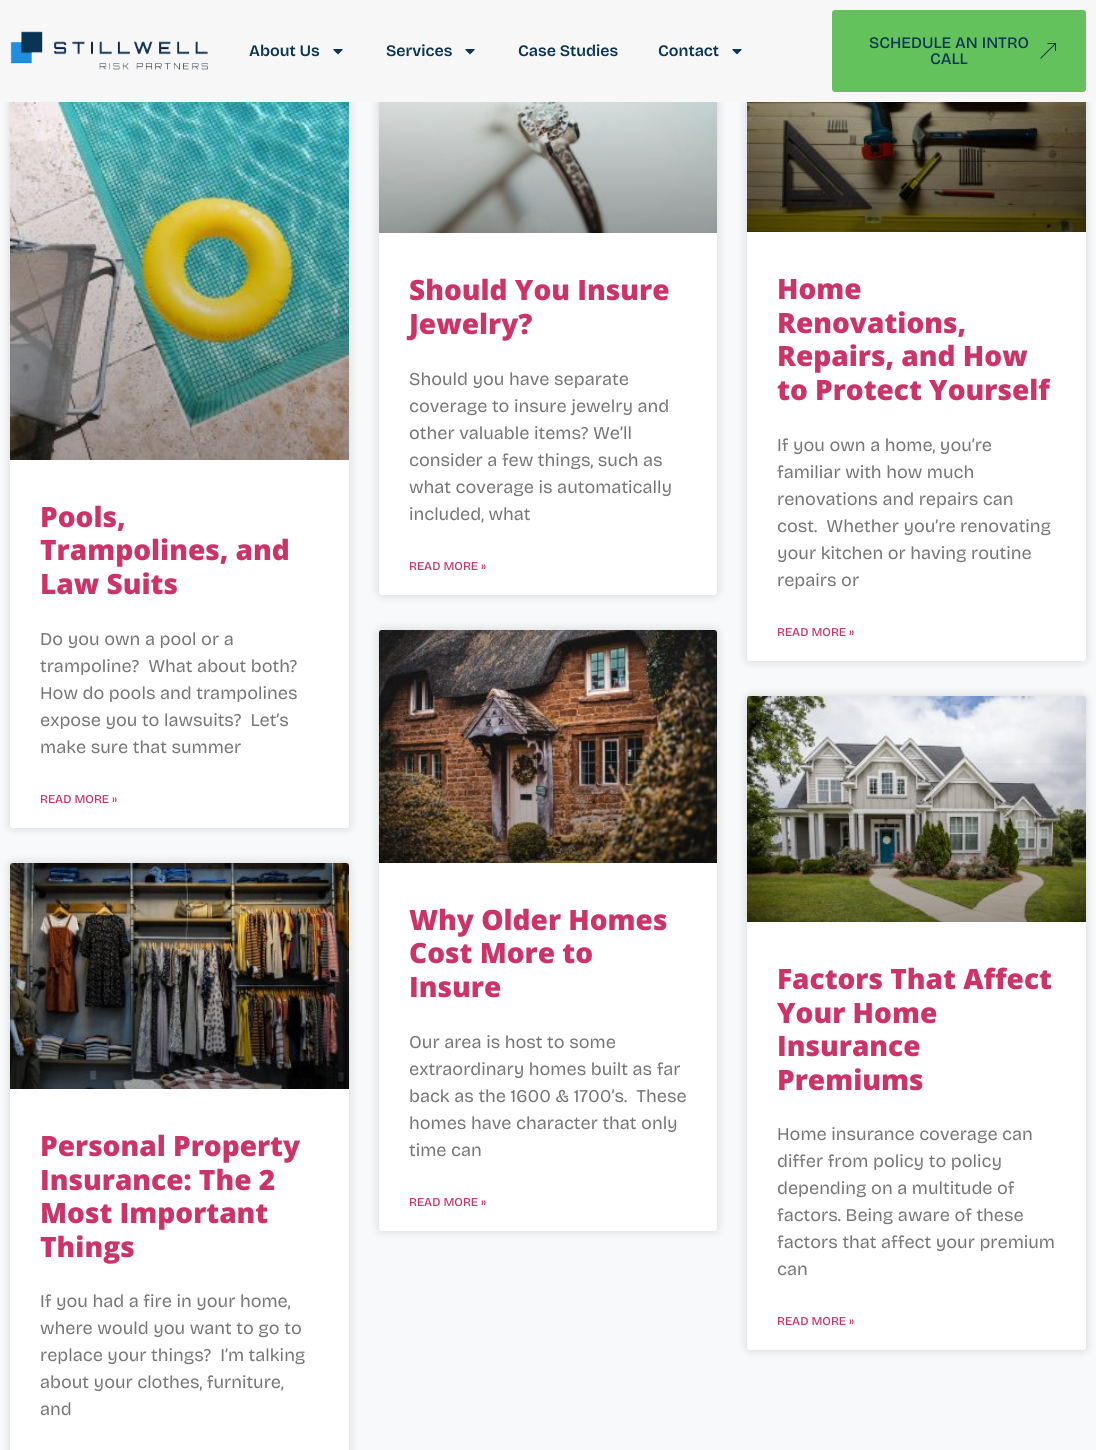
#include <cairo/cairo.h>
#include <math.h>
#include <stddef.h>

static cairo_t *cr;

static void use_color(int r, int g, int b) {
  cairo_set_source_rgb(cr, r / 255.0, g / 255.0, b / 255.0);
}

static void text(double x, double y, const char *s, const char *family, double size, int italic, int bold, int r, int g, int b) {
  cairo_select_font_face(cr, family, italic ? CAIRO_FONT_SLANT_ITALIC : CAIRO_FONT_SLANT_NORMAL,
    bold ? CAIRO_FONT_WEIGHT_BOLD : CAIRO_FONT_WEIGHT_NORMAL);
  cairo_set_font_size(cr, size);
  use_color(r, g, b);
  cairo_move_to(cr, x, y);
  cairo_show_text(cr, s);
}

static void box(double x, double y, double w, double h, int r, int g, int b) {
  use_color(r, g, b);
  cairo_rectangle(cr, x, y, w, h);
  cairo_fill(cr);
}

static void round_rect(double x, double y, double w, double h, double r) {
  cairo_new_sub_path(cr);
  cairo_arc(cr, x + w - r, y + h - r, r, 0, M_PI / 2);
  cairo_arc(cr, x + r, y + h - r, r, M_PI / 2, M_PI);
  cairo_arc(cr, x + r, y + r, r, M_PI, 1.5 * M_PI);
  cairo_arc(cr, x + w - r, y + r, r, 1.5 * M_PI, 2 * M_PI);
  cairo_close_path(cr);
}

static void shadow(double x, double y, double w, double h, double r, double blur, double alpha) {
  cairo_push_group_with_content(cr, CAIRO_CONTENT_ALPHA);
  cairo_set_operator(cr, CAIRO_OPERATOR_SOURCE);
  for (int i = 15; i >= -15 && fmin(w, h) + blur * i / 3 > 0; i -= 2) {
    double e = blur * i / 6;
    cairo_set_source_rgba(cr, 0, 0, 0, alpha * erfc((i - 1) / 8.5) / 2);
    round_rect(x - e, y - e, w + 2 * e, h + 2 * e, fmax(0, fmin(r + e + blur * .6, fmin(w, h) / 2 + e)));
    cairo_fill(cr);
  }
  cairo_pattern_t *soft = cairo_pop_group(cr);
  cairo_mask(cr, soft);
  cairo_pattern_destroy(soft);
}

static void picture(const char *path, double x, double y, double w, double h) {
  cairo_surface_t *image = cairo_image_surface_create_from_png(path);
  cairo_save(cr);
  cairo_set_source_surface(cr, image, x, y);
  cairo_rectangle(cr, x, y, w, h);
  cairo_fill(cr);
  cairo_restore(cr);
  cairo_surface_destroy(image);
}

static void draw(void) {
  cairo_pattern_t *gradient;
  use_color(248, 249, 250);
  cairo_paint(cr);
  use_color(0, 0, 0);
  shadow(10, 7, 339, 821, 3, 5, 0.15);
  use_color(255, 255, 255);
  round_rect(10, 7, 339, 821, 3);
  cairo_fill(cr);
  use_color(0, 0, 0);
  shadow(379, 7, 338, 588, 3, 5, 0.15);
  use_color(255, 255, 255);
  round_rect(379, 7, 338, 588, 3);
  cairo_fill(cr);
  use_color(0, 0, 0);
  shadow(747, 7, 339, 654, 3, 5, 0.15);
  use_color(255, 255, 255);
  round_rect(747, 7, 339, 654, 3);
  cairo_fill(cr);
  box(0, 0, 1096, 102, 247, 247, 247);
  picture("img_01.png", 10, 31, 198, 39);
  picture("img_02.png", 333, 49, 10, 6);
  picture("img_02.png", 465, 49, 10, 6);
  picture("img_02.png", 732, 49, 10, 6);
  use_color(99, 194, 91);
  round_rect(832, 10, 254, 82, 3);
  cairo_fill(cr);
  picture("img_03.png", 1040, 43, 16, 16);
  picture("img_04.png", 10, 102, 339, 358);
  gradient = cairo_pattern_create_linear(180, 460, 180, 7);
  cairo_pattern_add_color_stop_rgba(gradient, 0, 0, 0, 0, 0.35);
  cairo_pattern_add_color_stop_rgba(gradient, 0.75, 0, 0, 0, 0);
  cairo_set_source(cr, gradient);
  cairo_pattern_destroy(gradient);
  cairo_rectangle(cr, 10, 141, 339, 319);
  cairo_fill(cr);
  picture("img_05.png", 379, 102, 338, 131);
  gradient = cairo_pattern_create_linear(548, 233, 548, 7);
  cairo_pattern_add_color_stop_rgba(gradient, 0, 0, 0, 0, 0.35);
  cairo_pattern_add_color_stop_rgba(gradient, 0.75, 0, 0, 0, 0);
  cairo_set_source(cr, gradient);
  cairo_pattern_destroy(gradient);
  cairo_rectangle(cr, 379, 102, 338, 131);
  cairo_fill(cr);
  picture("img_06.png", 747, 102, 339, 130);
  gradient = cairo_pattern_create_linear(917, 232, 917, 7);
  cairo_pattern_add_color_stop_rgba(gradient, 0, 0, 0, 0, 0.35);
  cairo_pattern_add_color_stop_rgba(gradient, 0.75, 0, 0, 0, 0);
  cairo_set_source(cr, gradient);
  cairo_pattern_destroy(gradient);
  cairo_rectangle(cr, 747, 102, 339, 130);
  cairo_fill(cr);
  use_color(0, 0, 0);
  shadow(10, 863, 339, 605, 3, 5, 0.15);
  use_color(255, 255, 255);
  round_rect(10, 863, 339, 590, 3);
  cairo_fill(cr);
  picture("img_07.png", 10, 863, 339, 226);
  gradient = cairo_pattern_create_linear(180, 1089, 180, 863);
  cairo_pattern_add_color_stop_rgba(gradient, 0, 0, 0, 0, 0.35);
  cairo_pattern_add_color_stop_rgba(gradient, 0.75, 0, 0, 0, 0);
  cairo_set_source(cr, gradient);
  cairo_pattern_destroy(gradient);
  cairo_rectangle(cr, 10, 930, 339, 159);
  cairo_fill(cr);
  use_color(0, 0, 0);
  shadow(379, 630, 338, 601, 3, 5, 0.15);
  use_color(255, 255, 255);
  round_rect(379, 630, 338, 601, 3);
  cairo_fill(cr);
  picture("img_08.png", 379, 630, 338, 233);
  gradient = cairo_pattern_create_linear(548, 863, 548, 630);
  cairo_pattern_add_color_stop_rgba(gradient, 0, 0, 0, 0, 0.35);
  cairo_pattern_add_color_stop_rgba(gradient, 0.75, 0, 0, 0, 0);
  cairo_set_source(cr, gradient);
  cairo_pattern_destroy(gradient);
  cairo_rectangle(cr, 379, 699, 338, 164);
  cairo_fill(cr);
  use_color(0, 0, 0);
  shadow(747, 696, 339, 654, 3, 5, 0.15);
  use_color(255, 255, 255);
  round_rect(747, 696, 339, 654, 3);
  cairo_fill(cr);
  picture("img_09.png", 747, 696, 339, 226);
  gradient = cairo_pattern_create_linear(917, 922, 917, 696);
  cairo_pattern_add_color_stop_rgba(gradient, 0, 0, 0, 0, 0.35);
  cairo_pattern_add_color_stop_rgba(gradient, 0.75, 0, 0, 0, 0);
  cairo_set_source(cr, gradient);
  cairo_pattern_destroy(gradient);
  cairo_rectangle(cr, 747, 763, 339, 159);
  cairo_fill(cr);
  text(249, 56, "About Us", "Bricolage Grotesque SemiBold", 16, 0, 0, 10, 53, 85);
  text(386, 56, "Services", "Bricolage Grotesque SemiBold", 16, 0, 0, 10, 53, 85);
  text(518, 56, "Case Studies", "Bricolage Grotesque SemiBold", 16, 0, 0, 10, 53, 85);
  text(658, 56, "Contact", "Bricolage Grotesque SemiBold", 16, 0, 0, 10, 53, 85);
  text(869, 48, "SCHEDULE AN INTRO", "Bricolage Grotesque Medium", 16, 0, 0, 10, 53, 85);
  text(930, 64, "CALL", "Bricolage Grotesque Medium", 16, 0, 0, 10, 53, 85);
  text(40, 527, "Pools,", "Open Sans ExtraBold", 28, 0, 0, 204, 51, 102);
  text(40, 560, "Trampolines, and", "Open Sans ExtraBold", 28, 0, 0, 204, 51, 102);
  text(40, 594, "Law Suits", "Open Sans ExtraBold", 28, 0, 0, 204, 51, 102);
  text(40, 645, "Do you own a pool or a", "Bricolage Grotesque", 18, 0, 0, 119, 119, 119);
  text(40, 672, "trampoline?  What about both?", "Bricolage Grotesque", 18, 0, 0, 119, 119, 119);
  text(40, 699, "How do pools and trampolines", "Bricolage Grotesque", 18, 0, 0, 119, 119, 119);
  text(40, 726, "expose you to lawsuits?  Let’s", "Bricolage Grotesque", 18, 0, 0, 119, 119, 119);
  text(40, 753, "make sure that summer", "Bricolage Grotesque", 18, 0, 0, 119, 119, 119);
  text(40, 803, "READ MORE »", "Bricolage Grotesque Medium", 12, 0, 0, 204, 51, 102);
  text(409, 300, "Should You Insure", "Open Sans ExtraBold", 28, 0, 0, 204, 51, 102);
  text(409, 334, "Jewelry?", "Open Sans ExtraBold", 28, 0, 0, 204, 51, 102);
  text(409, 385, "Should you have separate", "Bricolage Grotesque", 18, 0, 0, 119, 119, 119);
  text(409, 412, "coverage to insure jewelry and", "Bricolage Grotesque", 18, 0, 0, 119, 119, 119);
  text(409, 439, "other valuable items? We’ll", "Bricolage Grotesque", 18, 0, 0, 119, 119, 119);
  text(409, 466, "consider a few things, such as", "Bricolage Grotesque", 18, 0, 0, 119, 119, 119);
  text(409, 493, "what coverage is automatically", "Bricolage Grotesque", 18, 0, 0, 119, 119, 119);
  text(409, 520, "included, what", "Bricolage Grotesque", 18, 0, 0, 119, 119, 119);
  text(409, 570, "READ MORE »", "Bricolage Grotesque Medium", 12, 0, 0, 204, 51, 102);
  text(777, 299, "Home", "Open Sans ExtraBold", 28, 0, 0, 204, 51, 102);
  text(777, 333, "Renovations,", "Open Sans ExtraBold", 28, 0, 0, 204, 51, 102);
  text(777, 366, "Repairs, and How", "Open Sans ExtraBold", 28, 0, 0, 204, 51, 102);
  text(777, 400, "to Protect Yourself", "Open Sans ExtraBold", 28, 0, 0, 204, 51, 102);
  text(777, 451, "If you own a home, you’re", "Bricolage Grotesque", 18, 0, 0, 119, 119, 119);
  text(777, 478, "familiar with how much", "Bricolage Grotesque", 18, 0, 0, 119, 119, 119);
  text(777, 505, "renovations and repairs can", "Bricolage Grotesque", 18, 0, 0, 119, 119, 119);
  text(777, 532, "cost.  Whether you’re renovating", "Bricolage Grotesque", 18, 0, 0, 119, 119, 119);
  text(777, 559, "your kitchen or having routine", "Bricolage Grotesque", 18, 0, 0, 119, 119, 119);
  text(777, 586, "repairs or", "Bricolage Grotesque", 18, 0, 0, 119, 119, 119);
  text(777, 636, "READ MORE »", "Bricolage Grotesque Medium", 12, 0, 0, 204, 51, 102);
  text(40, 1156, "Personal Property", "Open Sans ExtraBold", 28, 0, 0, 204, 51, 102);
  text(40, 1190, "Insurance: The 2", "Open Sans ExtraBold", 28, 0, 0, 204, 51, 102);
  text(40, 1223, "Most Important", "Open Sans ExtraBold", 28, 0, 0, 204, 51, 102);
  text(40, 1257, "Things", "Open Sans ExtraBold", 28, 0, 0, 204, 51, 102);
  text(40, 1307, "If you had a fire in your home,", "Bricolage Grotesque", 18, 0, 0, 119, 119, 119);
  text(40, 1334, "where would you want to go to", "Bricolage Grotesque", 18, 0, 0, 119, 119, 119);
  text(40, 1361, "replace your things?  I’m talking", "Bricolage Grotesque", 18, 0, 0, 119, 119, 119);
  text(40, 1388, "about your clothes, furniture,", "Bricolage Grotesque", 18, 0, 0, 119, 119, 119);
  text(40, 1415, "and", "Bricolage Grotesque", 18, 0, 0, 119, 119, 119);
  text(409, 930, "Why Older Homes", "Open Sans ExtraBold", 28, 0, 0, 204, 51, 102);
  text(409, 963, "Cost More to", "Open Sans ExtraBold", 28, 0, 0, 204, 51, 102);
  text(409, 997, "Insure", "Open Sans ExtraBold", 28, 0, 0, 204, 51, 102);
  text(409, 1048, "Our area is host to some", "Bricolage Grotesque", 18, 0, 0, 119, 119, 119);
  text(409, 1075, "extraordinary homes built as far", "Bricolage Grotesque", 18, 0, 0, 119, 119, 119);
  text(409, 1102, "back as the 1600 & 1700’s.  These", "Bricolage Grotesque", 18, 0, 0, 119, 119, 119);
  text(409, 1129, "homes have character that only", "Bricolage Grotesque", 18, 0, 0, 119, 119, 119);
  text(409, 1156, "time can", "Bricolage Grotesque", 18, 0, 0, 119, 119, 119);
  text(409, 1206, "READ MORE »", "Bricolage Grotesque Medium", 12, 0, 0, 204, 51, 102);
  text(777, 989, "Factors That Affect", "Open Sans ExtraBold", 28, 0, 0, 204, 51, 102);
  text(777, 1023, "Your Home", "Open Sans ExtraBold", 28, 0, 0, 204, 51, 102);
  text(777, 1056, "Insurance", "Open Sans ExtraBold", 28, 0, 0, 204, 51, 102);
  text(777, 1090, "Premiums", "Open Sans ExtraBold", 28, 0, 0, 204, 51, 102);
  text(777, 1140, "Home insurance coverage can", "Bricolage Grotesque", 18, 0, 0, 119, 119, 119);
  text(777, 1167, "differ from policy to policy", "Bricolage Grotesque", 18, 0, 0, 119, 119, 119);
  text(777, 1194, "depending on a multitude of", "Bricolage Grotesque", 18, 0, 0, 119, 119, 119);
  text(777, 1221, "factors. Being aware of these", "Bricolage Grotesque", 18, 0, 0, 119, 119, 119);
  text(777, 1248, "factors that affect your premium", "Bricolage Grotesque", 18, 0, 0, 119, 119, 119);
  text(777, 1275, "can", "Bricolage Grotesque", 18, 0, 0, 119, 119, 119);
  text(777, 1325, "READ MORE »", "Bricolage Grotesque Medium", 12, 0, 0, 204, 51, 102);
}

int main(void) {
  cairo_surface_t *surface = cairo_image_surface_create(CAIRO_FORMAT_RGB24, 1096, 1450);
  cr = cairo_create(surface);
  cairo_font_options_t *options = cairo_font_options_create();
  cairo_font_options_set_hint_metrics(options, CAIRO_HINT_METRICS_OFF);
  cairo_font_options_set_hint_style(options, CAIRO_HINT_STYLE_NONE);
  cairo_set_font_options(cr, options);
  cairo_set_miter_limit(cr, 4);
  draw();
  cairo_surface_write_to_png(surface, "out.png");
  cairo_font_options_destroy(options);
  cairo_destroy(cr);
  cairo_surface_destroy(surface);
  return 0;
}
